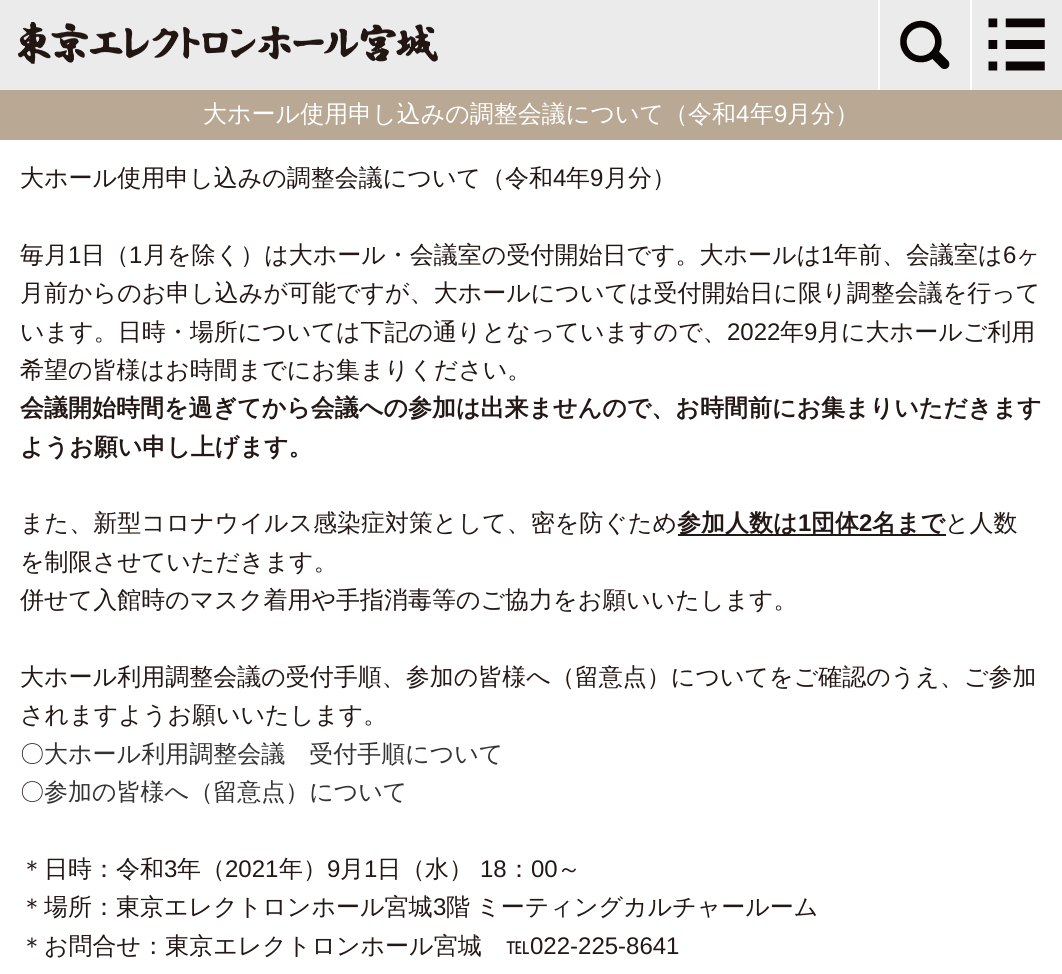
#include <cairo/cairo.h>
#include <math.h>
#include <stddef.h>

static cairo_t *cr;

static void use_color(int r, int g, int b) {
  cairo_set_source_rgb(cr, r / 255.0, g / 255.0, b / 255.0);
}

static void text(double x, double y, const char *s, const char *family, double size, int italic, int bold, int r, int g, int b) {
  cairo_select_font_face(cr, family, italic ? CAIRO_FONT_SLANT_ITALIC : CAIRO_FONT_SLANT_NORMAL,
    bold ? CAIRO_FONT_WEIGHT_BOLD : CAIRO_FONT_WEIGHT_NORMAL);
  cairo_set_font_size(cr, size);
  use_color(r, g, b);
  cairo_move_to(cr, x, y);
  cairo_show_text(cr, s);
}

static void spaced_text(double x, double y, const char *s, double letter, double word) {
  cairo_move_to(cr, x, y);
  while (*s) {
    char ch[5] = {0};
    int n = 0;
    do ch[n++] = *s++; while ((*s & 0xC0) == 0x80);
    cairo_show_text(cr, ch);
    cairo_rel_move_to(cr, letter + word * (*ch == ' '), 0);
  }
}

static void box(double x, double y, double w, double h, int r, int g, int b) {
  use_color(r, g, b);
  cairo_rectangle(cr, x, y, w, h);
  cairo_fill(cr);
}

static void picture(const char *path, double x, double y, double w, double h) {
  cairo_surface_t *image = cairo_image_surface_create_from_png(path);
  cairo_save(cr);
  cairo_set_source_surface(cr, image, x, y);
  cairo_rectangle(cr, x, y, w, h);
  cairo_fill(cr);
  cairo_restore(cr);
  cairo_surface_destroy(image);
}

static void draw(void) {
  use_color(255, 255, 255);
  cairo_paint(cr);
  box(0, 0, 1062, 90, 235, 235, 235);
  picture("img_01.png", 18, 22, 420, 42);
  box(878, 0, 2, 90, 255, 255, 255);
  picture("img_02.png", 900, 20, 50, 49);
  box(970, 0, 2, 90, 255, 255, 255);
  picture("img_03.png", 988, 18, 57, 53);
  box(0, 90, 1062, 50, 184, 168, 148);
  box(678, 534, 268, 2, 35, 24, 21);
  text(203, 122, "大ホール使用申し込みの調整会議について（令和", "WenQuanYi Zen Hei Medium", 24, 0, 0, 255, 255, 255);
  text(736, 122, "4", "Liberation Sans", 24, 0, 0, 255, 255, 255);
  text(750, 122, "年", "WenQuanYi Zen Hei Medium", 24, 0, 0, 255, 255, 255);
  text(774, 122, "9", "Liberation Sans", 24, 0, 0, 255, 255, 255);
  text(787, 122, "月分）", "WenQuanYi Zen Hei Medium", 24, 0, 0, 255, 255, 255);
  text(20, 186, "大ホール使用申し込みの調整会議について（令和", "WenQuanYi Zen Hei Medium", 24, 0, 0, 35, 24, 21);
  text(553, 186, "4", "Liberation Sans", 24, 0, 0, 35, 24, 21);
  text(566, 186, "年", "WenQuanYi Zen Hei Medium", 24, 0, 0, 35, 24, 21);
  text(590, 186, "9", "Liberation Sans", 24, 0, 0, 35, 24, 21);
  text(604, 186, "月分）", "WenQuanYi Zen Hei Medium", 24, 0, 0, 35, 24, 21);
  text(20, 263, "毎月", "WenQuanYi Zen Hei Medium", 24, 0, 0, 35, 24, 21);
  text(68, 263, "1", "Liberation Sans", 24, 0, 0, 35, 24, 21);
  text(81, 263, "日（", "WenQuanYi Zen Hei Medium", 24, 0, 0, 35, 24, 21);
  text(129, 263, "1", "Liberation Sans", 24, 0, 0, 35, 24, 21);
  text(143, 263, "月を除く）は大ホール・会議室の受付開始日です。大ホールは", "WenQuanYi Zen Hei Medium", 24, 0, 0, 35, 24, 21);
  text(821, 263, "1", "Liberation Sans", 24, 0, 0, 35, 24, 21);
  text(834, 263, "年前、会議室は", "WenQuanYi Zen Hei Medium", 24, 0, 0, 35, 24, 21);
  text(1003, 263, "6", "Liberation Sans", 24, 0, 0, 35, 24, 21);
  text(1016, 263, "ヶ", "WenQuanYi Zen Hei Medium", 24, 0, 0, 35, 24, 21);
  text(20, 301, "月前からのお申し込みが可能ですが、大ホールについては受付開始日に限り調整会議を行って", "WenQuanYi Zen Hei Medium", 24, 0, 0, 35, 24, 21);
  text(20, 340, "います。日時・場所については下記の通りとなっていますので、", "WenQuanYi Zen Hei Medium", 24, 0, 0, 35, 24, 21);
  text(727, 340, "2022", "Liberation Sans", 24, 0, 0, 35, 24, 21);
  text(780, 340, "年", "WenQuanYi Zen Hei Medium", 24, 0, 0, 35, 24, 21);
  text(804, 340, "9", "Liberation Sans", 24, 0, 0, 35, 24, 21);
  text(817, 340, "月に大ホールご利用", "WenQuanYi Zen Hei Medium", 24, 0, 0, 35, 24, 21);
  text(20, 378, "希望の皆様はお時間までにお集まりください。", "WenQuanYi Zen Hei Medium", 24, 0, 0, 35, 24, 21);
  text(20, 416, "会議開始時間を過ぎてから会議への参加は出来ませんので、お時間前にお集まりいただきます", "WenQuanYi Zen Hei", 24, 0, 1, 35, 24, 21);
  text(20, 455, "ようお願い申し上げます。", "WenQuanYi Zen Hei", 24, 0, 1, 35, 24, 21);
  text(20, 531, "また、新型コロナウイルス感染症対策として、密を防ぐため", "WenQuanYi Zen Hei Medium", 24, 0, 0, 35, 24, 21);
  text(677, 531, "参加人数は", "WenQuanYi Zen Hei", 24, 0, 1, 35, 24, 21);
  text(798, 531, "1", "Liberation Sans", 24, 0, 1, 35, 24, 21);
  text(811, 531, "団体", "WenQuanYi Zen Hei", 24, 0, 1, 35, 24, 21);
  text(859, 531, "2", "Liberation Sans", 24, 0, 1, 35, 24, 21);
  text(872, 531, "名まで", "WenQuanYi Zen Hei", 24, 0, 1, 35, 24, 21);
  text(945, 531, "と人数", "WenQuanYi Zen Hei Medium", 24, 0, 0, 35, 24, 21);
  text(20, 570, "を制限させていただきます。", "WenQuanYi Zen Hei Medium", 24, 0, 0, 35, 24, 21);
  text(20, 608, "併せて入館時のマスク着用や手指消毒等のご協力をお願いいたします。", "WenQuanYi Zen Hei Medium", 24, 0, 0, 35, 24, 21);
  text(20, 685, "大ホール利用調整会議の受付手順、参加の皆様へ（留意点）についてをご確認のうえ、ご参加", "WenQuanYi Zen Hei Medium", 24, 0, 0, 35, 24, 21);
  text(20, 723, "されますようお願いいたします。", "WenQuanYi Zen Hei Medium", 24, 0, 0, 35, 24, 21);
  text(20, 762, "〇", "WenQuanYi Zen Hei Medium", 24, 0, 0, 35, 24, 21);
  text(44, 762, "大ホール利用調整会議　受付手順について", "WenQuanYi Zen Hei Medium", 24, 0, 0, 51, 51, 51);
  text(20, 800, "〇", "WenQuanYi Zen Hei Medium", 24, 0, 0, 35, 24, 21);
  text(44, 800, "参加の皆様へ（留意点）について", "WenQuanYi Zen Hei Medium", 24, 0, 0, 51, 51, 51);
  text(20, 877, "＊日時：令和", "WenQuanYi Zen Hei Medium", 24, 0, 0, 35, 24, 21);
  text(164, 877, "3", "Liberation Sans", 24, 0, 0, 35, 24, 21);
  text(177, 877, "年（", "WenQuanYi Zen Hei Medium", 24, 0, 0, 35, 24, 21);
  text(225, 877, "2021", "Liberation Sans", 24, 0, 0, 35, 24, 21);
  text(279, 877, "年）", "WenQuanYi Zen Hei Medium", 24, 0, 0, 35, 24, 21);
  text(327, 877, "9", "Liberation Sans", 24, 0, 0, 35, 24, 21);
  text(340, 877, "月", "WenQuanYi Zen Hei Medium", 24, 0, 0, 35, 24, 21);
  text(364, 877, "1", "Liberation Sans", 24, 0, 0, 35, 24, 21);
  text(377, 877, "日（水）", "WenQuanYi Zen Hei Medium", 24, 0, 0, 35, 24, 21);
  text(480, 877, "18", "Liberation Sans", 24, 0, 0, 35, 24, 21);
  text(507, 877, "：", "WenQuanYi Zen Hei Medium", 24, 0, 0, 35, 24, 21);
  text(531, 877, "00", "Liberation Sans", 24, 0, 0, 35, 24, 21);
  text(557, 877, "～", "WenQuanYi Zen Hei Medium", 24, 0, 0, 35, 24, 21);
  text(20, 915, "＊場所：東京エレクトロンホール宮城", "WenQuanYi Zen Hei Medium", 24, 0, 0, 35, 24, 21);
  text(433, 915, "3", "Liberation Sans", 24, 0, 0, 35, 24, 21);
  cairo_select_font_face(cr, "WenQuanYi Zen Hei Medium", CAIRO_FONT_SLANT_NORMAL, CAIRO_FONT_WEIGHT_NORMAL);
  spaced_text(446, 915, "階 ミーティングカルチャールーム", 0, -1);
  text(20, 954, "＊お問合せ：東京エレクトロンホール宮城　℡", "WenQuanYi Zen Hei Medium", 24, 0, 0, 35, 24, 21);
  text(530, 954, "022-225-8641", "Liberation Sans", 24, 0, 0, 35, 24, 21);
}

int main(void) {
  cairo_surface_t *surface = cairo_image_surface_create(CAIRO_FORMAT_RGB24, 1062, 974);
  cr = cairo_create(surface);
  cairo_font_options_t *options = cairo_font_options_create();
  cairo_font_options_set_hint_metrics(options, CAIRO_HINT_METRICS_OFF);
  cairo_font_options_set_hint_style(options, CAIRO_HINT_STYLE_NONE);
  cairo_set_font_options(cr, options);
  cairo_set_miter_limit(cr, 4);
  draw();
  cairo_surface_write_to_png(surface, "out.png");
  cairo_font_options_destroy(options);
  cairo_destroy(cr);
  cairo_surface_destroy(surface);
  return 0;
}
